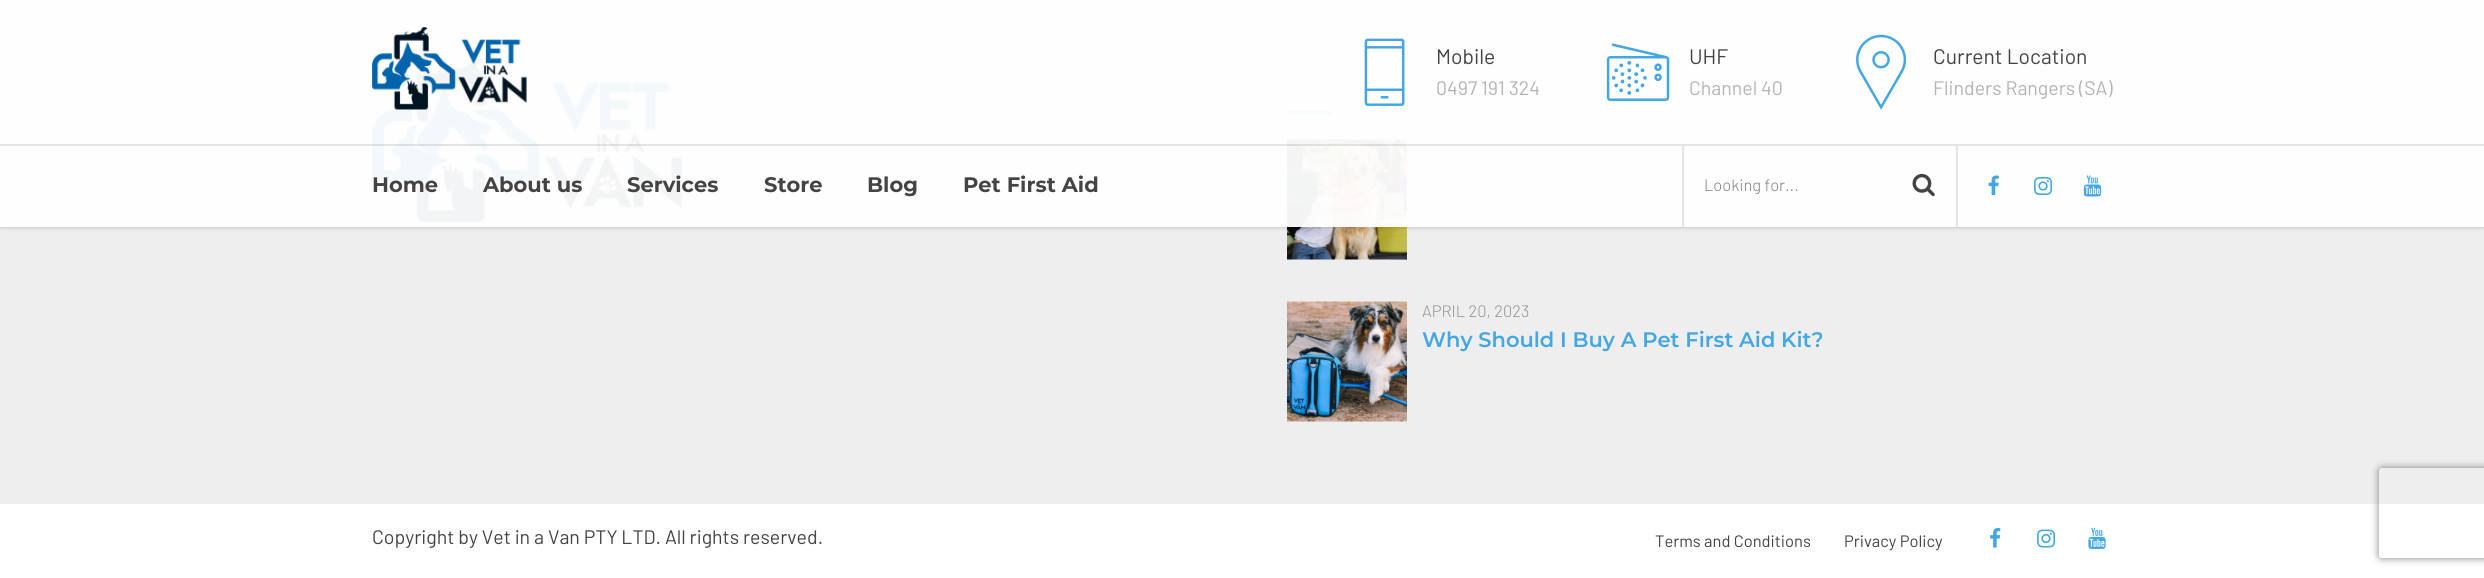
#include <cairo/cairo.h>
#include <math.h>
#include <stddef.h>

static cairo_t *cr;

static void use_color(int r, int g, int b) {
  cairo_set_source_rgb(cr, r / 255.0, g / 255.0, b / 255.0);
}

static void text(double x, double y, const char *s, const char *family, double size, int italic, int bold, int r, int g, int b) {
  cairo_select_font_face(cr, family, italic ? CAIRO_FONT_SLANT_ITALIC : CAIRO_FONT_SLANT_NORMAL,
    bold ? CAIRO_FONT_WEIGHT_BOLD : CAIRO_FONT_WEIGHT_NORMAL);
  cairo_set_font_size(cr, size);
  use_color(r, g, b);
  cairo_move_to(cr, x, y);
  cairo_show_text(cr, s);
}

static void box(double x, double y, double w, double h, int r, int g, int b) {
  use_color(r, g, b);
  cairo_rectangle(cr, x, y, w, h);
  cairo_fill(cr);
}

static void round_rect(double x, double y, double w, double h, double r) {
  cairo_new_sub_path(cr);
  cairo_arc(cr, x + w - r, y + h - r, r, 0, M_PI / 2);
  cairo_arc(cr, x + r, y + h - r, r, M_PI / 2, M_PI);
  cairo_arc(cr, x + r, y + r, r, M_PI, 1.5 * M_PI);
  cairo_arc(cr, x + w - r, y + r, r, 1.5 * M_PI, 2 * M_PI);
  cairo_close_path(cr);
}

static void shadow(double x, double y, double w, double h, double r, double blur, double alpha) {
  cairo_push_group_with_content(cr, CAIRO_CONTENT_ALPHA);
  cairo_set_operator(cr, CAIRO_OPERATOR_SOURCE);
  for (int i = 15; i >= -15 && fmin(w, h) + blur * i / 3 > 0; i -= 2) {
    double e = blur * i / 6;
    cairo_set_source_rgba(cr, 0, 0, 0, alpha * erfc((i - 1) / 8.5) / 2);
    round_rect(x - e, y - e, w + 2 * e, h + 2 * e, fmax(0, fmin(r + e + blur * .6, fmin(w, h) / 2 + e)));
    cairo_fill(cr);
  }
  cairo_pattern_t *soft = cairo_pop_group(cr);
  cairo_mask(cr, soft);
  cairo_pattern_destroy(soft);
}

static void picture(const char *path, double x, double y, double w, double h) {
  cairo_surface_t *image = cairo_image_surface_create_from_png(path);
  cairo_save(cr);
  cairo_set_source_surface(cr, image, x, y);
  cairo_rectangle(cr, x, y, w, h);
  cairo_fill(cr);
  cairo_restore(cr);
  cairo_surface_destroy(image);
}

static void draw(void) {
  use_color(255, 255, 255);
  cairo_paint(cr);
  box(0, 0, 2484, 504, 238, 238, 238);
  picture("img_09.png", 372, 57, 311, 165);
  box(1287, 111, 45, 3, 68, 167, 227);
  picture("img_10.png", 1287, 139, 120, 121);
  cairo_save(cr);
  cairo_set_fill_rule(cr, CAIRO_FILL_RULE_EVEN_ODD);
  cairo_new_path(cr);
  cairo_move_to(cr, 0, 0);
  cairo_line_to(cr, 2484, 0);
  cairo_line_to(cr, 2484, 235);
  cairo_line_to(cr, 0, 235);
  cairo_close_path(cr);
  cairo_move_to(cr, 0, 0);
  cairo_line_to(cr, 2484, 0);
  cairo_line_to(cr, 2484, 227);
  cairo_line_to(cr, 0, 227);
  cairo_close_path(cr);
  cairo_clip(cr);
  use_color(0, 0, 0);
  shadow(0, 2, 2484, 226, 0, 2, 0.16);
  cairo_restore(cr);
  cairo_set_source_rgba(cr, 1, 1, 1, 0.95);
  cairo_rectangle(cr, 0, 0, 2484, 227);
  cairo_fill(cr);
  picture("img_01.png", 372, 27, 155, 83);
  picture("img_02.png", 1364, 38, 41, 68);
  picture("img_03.png", 1606, 43, 64, 58);
  picture("img_04.png", 1856, 34, 51, 76);
  cairo_set_source_rgba(cr, 0, 0, 0, 0.1);
  cairo_rectangle(cr, 0, 144, 1242, 2);
  cairo_fill(cr);
  cairo_rectangle(cr, 1242, 144, 1242, 2);
  cairo_fill(cr);
  cairo_rectangle(cr, 1956, 146, 2, 81);
  cairo_fill(cr);
  box(1682, 146, 2, 81, 229, 229, 229);
  picture("img_05.png", 1912, 173, 23, 24);
  picture("img_06.png", 1988, 175, 11, 20);
  picture("img_07.png", 2034, 177, 18, 18);
  picture("img_08.png", 2083, 175, 19, 22);
  picture("img_11.png", 1287, 301, 120, 121);
  picture("img_12.png", 1990, 528, 11, 20);
  picture("img_13.png", 2037, 529, 18, 19);
  picture("img_14.png", 2088, 528, 18, 21);
  cairo_save(cr);
  cairo_set_fill_rule(cr, CAIRO_FILL_RULE_EVEN_ODD);
  cairo_new_path(cr);
  cairo_move_to(cr, 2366, 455);
  cairo_line_to(cr, 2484, 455);
  cairo_line_to(cr, 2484, 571);
  cairo_line_to(cr, 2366, 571);
  cairo_close_path(cr);
  cairo_move_to(cr, 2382, 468);
  cairo_line_to(cr, 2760, 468);
  cairo_curve_to(cr, 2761.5, 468, 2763, 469.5, 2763, 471);
  cairo_line_to(cr, 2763, 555);
  cairo_curve_to(cr, 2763, 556.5, 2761.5, 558, 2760, 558);
  cairo_line_to(cr, 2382, 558);
  cairo_curve_to(cr, 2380.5, 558, 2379, 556.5, 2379, 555);
  cairo_line_to(cr, 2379, 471);
  cairo_curve_to(cr, 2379, 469.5, 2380.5, 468, 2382, 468);
  cairo_close_path(cr);
  cairo_clip(cr);
  use_color(128, 128, 128);
  shadow(2379, 468, 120, 90, 3, 4, 1);
  cairo_restore(cr);
  text(1436, 64, "Mobile", "Barlow", 21, 0, 0, 68, 68, 68);
  text(1436, 95, "0497 191 324", "Barlow", 19.5, 0, 0, 179, 179, 179);
  text(1689, 64, "UHF", "Barlow", 21, 0, 0, 68, 68, 68);
  text(1689, 95, "Channel 40", "Barlow", 19.5, 0, 0, 179, 179, 179);
  text(1933, 64, "Current Location", "Barlow", 21, 0, 0, 68, 68, 68);
  text(1933, 95, "Flinders Rangers (SA)", "Barlow", 19.5, 0, 0, 179, 179, 179);
  text(372, 192, "Home", "Montserrat", 21, 0, 1, 68, 68, 68);
  text(483, 192, "About us", "Montserrat", 21, 0, 1, 68, 68, 68);
  text(627, 192, "Services", "Montserrat", 21, 0, 1, 68, 68, 68);
  text(764, 192, "Store", "Montserrat", 21, 0, 1, 68, 68, 68);
  text(867, 192, "Blog", "Montserrat", 21, 0, 1, 68, 68, 68);
  text(963, 192, "Pet First Aid", "Montserrat", 21, 0, 1, 68, 68, 68);
  cairo_save(cr);
  cairo_rectangle(cr, 1704, 174, 200, 20);
  cairo_clip(cr);
  text(1704, 191, "Looking for...", "Barlow Light", 16.5, 0, 0, 126, 127, 127);
  cairo_restore(cr);
  text(1422, 317, "APRIL 20, 2023", "Barlow Light", 16.5, 0, 0, 145, 145, 145);
  text(1422, 347, "Why Should I Buy A Pet First Aid Kit?", "Montserrat SemiBold", 21, 0, 0, 68, 167, 227);
  text(372, 544, "Copyright by Vet in a Van PTY LTD. All rights reserved.", "Barlow", 19.5, 0, 0, 68, 68, 68);
  text(1655, 547, "Terms and Conditions", "Barlow", 16.5, 0, 0, 68, 68, 68);
  text(1844, 547, "Privacy Policy", "Barlow", 16.5, 0, 0, 68, 68, 68);
}

int main(void) {
  cairo_surface_t *surface = cairo_image_surface_create(CAIRO_FORMAT_RGB24, 2484, 578);
  cr = cairo_create(surface);
  cairo_font_options_t *options = cairo_font_options_create();
  cairo_font_options_set_hint_metrics(options, CAIRO_HINT_METRICS_OFF);
  cairo_font_options_set_hint_style(options, CAIRO_HINT_STYLE_NONE);
  cairo_set_font_options(cr, options);
  cairo_set_miter_limit(cr, 4);
  draw();
  cairo_surface_write_to_png(surface, "out.png");
  cairo_font_options_destroy(options);
  cairo_destroy(cr);
  cairo_surface_destroy(surface);
  return 0;
}
